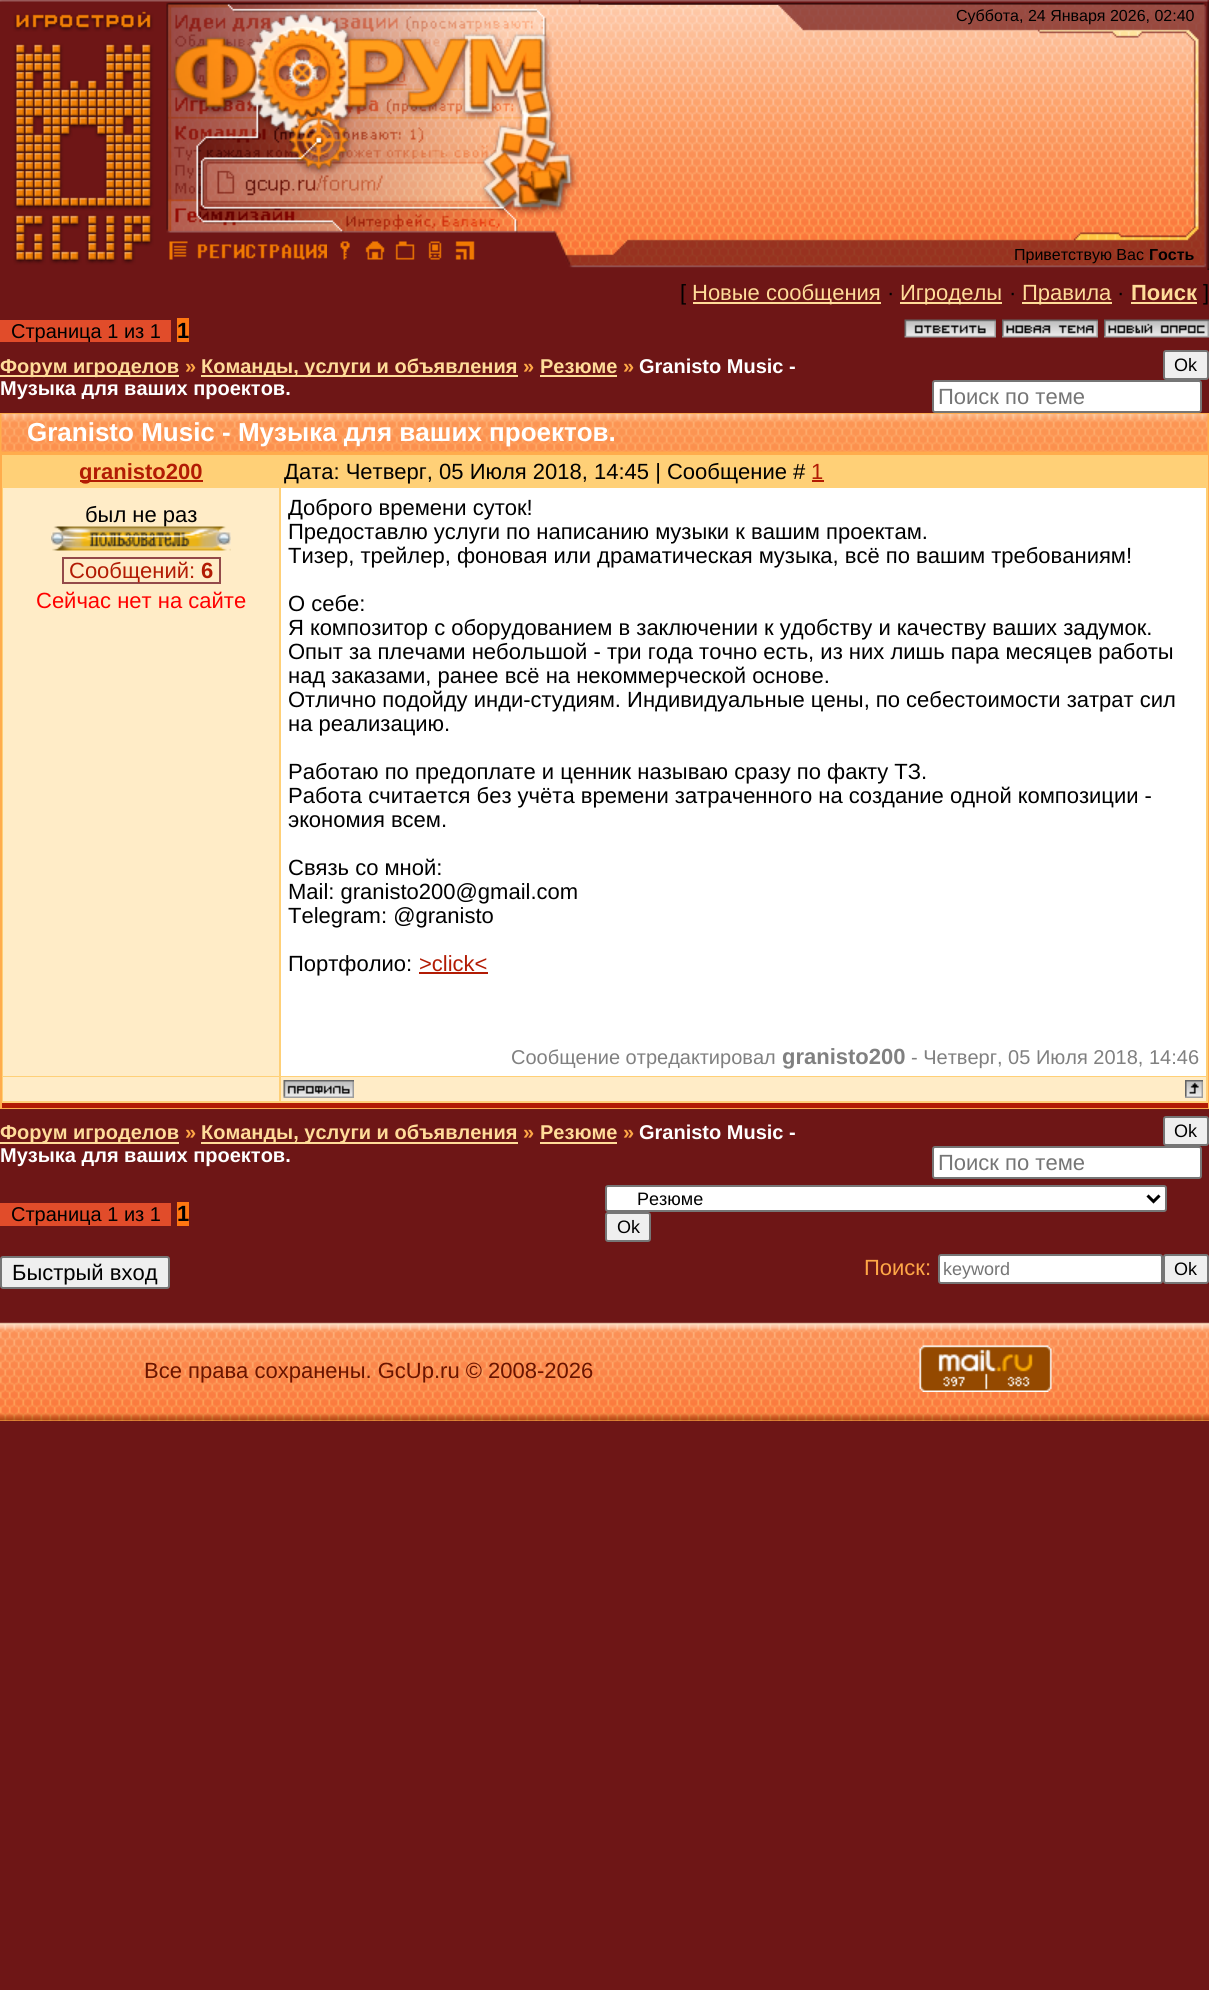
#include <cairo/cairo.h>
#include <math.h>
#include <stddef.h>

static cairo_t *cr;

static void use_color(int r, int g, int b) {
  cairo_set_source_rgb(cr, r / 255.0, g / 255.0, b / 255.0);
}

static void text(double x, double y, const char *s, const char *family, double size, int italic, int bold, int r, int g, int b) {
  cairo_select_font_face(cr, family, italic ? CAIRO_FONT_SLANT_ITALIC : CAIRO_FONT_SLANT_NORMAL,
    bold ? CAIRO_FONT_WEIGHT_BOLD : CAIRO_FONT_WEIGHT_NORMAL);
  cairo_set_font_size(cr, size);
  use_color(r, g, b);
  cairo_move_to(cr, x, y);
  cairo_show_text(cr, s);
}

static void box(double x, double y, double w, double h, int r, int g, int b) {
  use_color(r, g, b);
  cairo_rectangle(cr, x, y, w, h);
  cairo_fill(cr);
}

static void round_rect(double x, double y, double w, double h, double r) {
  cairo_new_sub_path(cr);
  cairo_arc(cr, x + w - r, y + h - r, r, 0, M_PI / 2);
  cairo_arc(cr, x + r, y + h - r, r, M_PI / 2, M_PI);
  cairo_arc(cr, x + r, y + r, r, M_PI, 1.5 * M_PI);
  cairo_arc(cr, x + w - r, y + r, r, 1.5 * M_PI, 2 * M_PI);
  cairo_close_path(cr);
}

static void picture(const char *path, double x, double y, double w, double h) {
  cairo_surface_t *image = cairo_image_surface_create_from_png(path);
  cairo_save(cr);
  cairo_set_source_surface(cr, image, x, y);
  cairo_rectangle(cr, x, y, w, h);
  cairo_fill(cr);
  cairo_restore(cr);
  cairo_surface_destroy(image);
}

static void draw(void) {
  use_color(110, 22, 22);
  cairo_paint(cr);
  picture("img_01.png", 580, 0, 615, 268);
  picture("img_02.png", 0, 0, 581, 268);
  picture("img_03.png", 169, 241, 19, 19);
  picture("img_04.png", 197, 244, 130, 16);
  picture("img_05.png", 340, 241, 10, 19);
  picture("img_06.png", 365, 241, 20, 19);
  picture("img_07.png", 395, 241, 20, 19);
  picture("img_08.png", 428, 241, 14, 19);
  picture("img_09.png", 455, 241, 20, 19);
  picture("img_10.png", 598, 0, 611, 270);
  box(693, 302, 188, 2, 255, 220, 153);
  box(900, 302, 102, 2, 255, 220, 153);
  box(1022, 302, 90, 2, 255, 220, 153);
  box(1131, 302, 66, 2, 255, 220, 153);
  box(0, 320, 171, 22, 225, 76, 42);
  box(177, 318, 12, 24, 255, 118, 17);
  picture("img_11.png", 904, 319, 92, 19);
  picture("img_12.png", 1002, 319, 96, 19);
  picture("img_13.png", 1104, 319, 105, 19);
  box(0, 375, 179, 2, 255, 220, 153);
  box(201, 375, 317, 2, 255, 220, 153);
  box(540, 375, 77, 2, 255, 220, 153);
  use_color(239, 239, 239);
  round_rect(1164, 351, 44, 28, 2);
  cairo_fill_preserve(cr);
  use_color(118, 118, 118);
  cairo_stroke(cr);
  use_color(255, 255, 255);
  round_rect(933, 381, 268, 31, 2);
  cairo_fill_preserve(cr);
  use_color(118, 118, 118);
  cairo_stroke(cr);
  box(0, 413, 1209, 696, 255, 172, 76);
  picture("img_14.png", 1, 414, 1207, 38);
  box(2, 1103, 1206, 5, 178, 27, 4);
  box(2, 455, 1206, 648, 255, 208, 119);
  box(80, 480, 123, 2, 178, 27, 4);
  box(812, 480, 12, 2, 178, 27, 4);
  box(3, 488, 276, 588, 255, 236, 199);
  box(62, 582, 139, 2, 147, 74, 74);
  box(62, 557, 159, 2, 147, 74, 74);
  box(62, 557, 2, 27, 147, 74, 74);
  box(219, 557, 2, 27, 147, 74, 74);
  box(201, 582, 20, 2, 147, 74, 74);
  box(281, 488, 925, 588, 255, 255, 255);
  box(419, 972, 69, 2, 178, 27, 4);
  box(3, 1077, 276, 24, 255, 236, 199);
  box(281, 1077, 925, 24, 255, 236, 199);
  picture("img_16.png", 283, 1080, 71, 18);
  picture("img_17.png", 1185, 1080, 18, 18);
  box(0, 1142, 179, 2, 255, 220, 153);
  box(201, 1142, 317, 2, 255, 220, 153);
  box(540, 1142, 77, 2, 255, 220, 153);
  use_color(239, 239, 239);
  round_rect(1164, 1117, 44, 28, 2);
  cairo_fill_preserve(cr);
  use_color(118, 118, 118);
  cairo_stroke(cr);
  use_color(255, 255, 255);
  round_rect(933, 1147, 268, 31, 2);
  cairo_fill_preserve(cr);
  use_color(118, 118, 118);
  cairo_stroke(cr);
  box(0, 1203, 171, 23, 225, 76, 42);
  box(177, 1202, 12, 24, 255, 118, 17);
  use_color(255, 255, 255);
  round_rect(606, 1186, 560, 25, 2);
  cairo_fill_preserve(cr);
  use_color(118, 118, 118);
  cairo_stroke(cr);
  cairo_new_path(cr);
  cairo_move_to(cr, 1147.5, 1195.5);
  cairo_line_to(cr, 1153.5, 1201.5);
  cairo_line_to(cr, 1159.5, 1195.5);
  use_color(0, 0, 0);
  cairo_set_line_width(cr, 3);
  cairo_stroke(cr);
  use_color(239, 239, 239);
  round_rect(606, 1213, 44, 28, 2);
  cairo_fill_preserve(cr);
  use_color(118, 118, 118);
  cairo_set_line_width(cr, 2);
  cairo_stroke(cr);
  use_color(239, 239, 239);
  round_rect(1, 1257, 168, 31, 2);
  cairo_fill_preserve(cr);
  use_color(118, 118, 118);
  cairo_stroke(cr);
  use_color(255, 255, 255);
  round_rect(939, 1255, 223, 28, 2);
  cairo_fill_preserve(cr);
  use_color(118, 118, 118);
  cairo_stroke(cr);
  use_color(239, 239, 239);
  round_rect(1164, 1255, 44, 28, 2);
  cairo_fill_preserve(cr);
  use_color(118, 118, 118);
  cairo_stroke(cr);
  box(0, 1420, 1209, 1, 255, 172, 76);
  picture("img_18.png", 0, 1320, 1209, 101);
  picture("img_19.png", 919, 1345, 133, 47);
  text(956, 21, "Суббота, 24 Января 2026, 02:40", "Liberation Sans", 16, 0, 0, 0, 0, 0);
  text(1014, 260, "Приветствую Вас", "Liberation Sans", 16, 0, 0, 0, 0, 0);
  text(1149, 260, "Гость", "Liberation Sans", 16, 0, 1, 0, 0, 0);
  text(680, 300, "[", "Liberation Sans", 22, 0, 0, 0, 0, 0);
  text(692, 300, "Новые сообщения", "Liberation Sans", 22, 0, 0, 255, 220, 153);
  text(887, 300, "·", "Liberation Sans", 22, 0, 0, 0, 0, 0);
  text(900, 300, "Игроделы", "Liberation Sans", 22, 0, 0, 255, 220, 153);
  text(1009, 300, "·", "Liberation Sans", 22, 0, 0, 0, 0, 0);
  text(1022, 300, "Правила", "Liberation Sans", 22, 0, 0, 255, 220, 153);
  text(1117, 300, "·", "Liberation Sans", 22, 0, 0, 0, 0, 0);
  text(1131, 300, "Поиск", "Liberation Sans", 22, 0, 1, 255, 220, 153);
  text(1203, 300, "]", "Liberation Sans", 22, 0, 0, 0, 0, 0);
  text(11, 338, "Страница 1 из 1", "Liberation Sans", 20, 0, 0, 0, 0, 0);
  text(177, 338, "1", "Liberation Sans", 22, 0, 1, 0, 0, 0);
  text(0, 373, "Форум игроделов", "Liberation Sans", 20, 0, 1, 255, 220, 153);
  text(185, 373, "»", "Liberation Sans", 20, 0, 1, 255, 167, 71);
  text(201, 373, "Команды, услуги и объявления", "Liberation Sans", 20, 0, 1, 255, 220, 153);
  text(523, 373, "»", "Liberation Sans", 20, 0, 1, 255, 167, 71);
  text(540, 373, "Резюме", "Liberation Sans", 20, 0, 1, 255, 220, 153);
  text(623, 373, "»", "Liberation Sans", 20, 0, 1, 255, 167, 71);
  text(639, 373, "Granisto Music -", "Liberation Sans", 20, 0, 1, 255, 255, 255);
  text(0, 395, "Музыкa для ваших проектов.", "Liberation Sans", 20, 0, 1, 255, 255, 255);
  text(1174, 371, "Ok", "Liberation Sans", 18, 0, 0, 0, 0, 0);
  text(938, 404, "Поиск по теме", "Liberation Sans", 22, 0, 0, 117, 117, 117);
  text(27, 441, "Granisto Music - Музыкa для ваших проектов.", "Liberation Sans", 26, 0, 1, 255, 255, 255);
  text(79, 479, "granisto200", "Liberation Sans", 22, 0, 1, 178, 27, 4);
  text(284, 479, "Дата: Четверг, 05 Июля 2018, 14:45 | Сообщение #", "Liberation Sans", 22, 0, 0, 0, 0, 0);
  text(811, 479, "1", "Liberation Sans", 22, 0, 0, 178, 27, 4);
  text(85, 522, "был не раз", "Liberation Sans", 22, 0, 0, 0, 0, 0);
  picture("img_15.png", 51, 526, 180, 25);
  text(69, 578, "Сообщений:", "Liberation Sans", 22, 0, 0, 178, 27, 4);
  text(201, 578, "6", "Liberation Sans", 22, 0, 1, 178, 27, 4);
  text(36, 608, "Сейчас нет на сайте", "Liberation Sans", 22, 0, 0, 255, 0, 0);
  text(288, 515, "Доброго времени суток!", "Liberation Sans", 22, 0, 0, 0, 0, 0);
  text(288, 539, "Предоставлю услуги по написанию музыки к вашим проектам.", "Liberation Sans", 22, 0, 0, 0, 0, 0);
  text(288, 563, "Тизер, трейлер, фоновая или драматическая музыка, всё по вашим требованиям!", "Liberation Sans", 22, 0, 0, 0, 0, 0);
  text(288, 611, "О себе:", "Liberation Sans", 22, 0, 0, 0, 0, 0);
  text(288, 635, "Я композитор с оборудованием в заключении к удобству и качеству ваших задумок.", "Liberation Sans", 22, 0, 0, 0, 0, 0);
  text(288, 659, "Опыт за плечами небольшой - три года точно есть, из них лишь пара месяцев работы", "Liberation Sans", 22, 0, 0, 0, 0, 0);
  text(288, 683, "над заказами, ранее всё на некоммерческой основе.", "Liberation Sans", 22, 0, 0, 0, 0, 0);
  text(288, 707, "Отлично подойду инди-студиям. Индивидуальные цены, по себестоимости затрат сил", "Liberation Sans", 22, 0, 0, 0, 0, 0);
  text(288, 731, "на реализацию.", "Liberation Sans", 22, 0, 0, 0, 0, 0);
  text(288, 779, "Работаю по предоплате и ценник называю сразу по факту ТЗ.", "Liberation Sans", 22, 0, 0, 0, 0, 0);
  text(288, 803, "Работа считается без учёта времени затраченного на создание одной композиции -", "Liberation Sans", 22, 0, 0, 0, 0, 0);
  text(288, 827, "экономия всем.", "Liberation Sans", 22, 0, 0, 0, 0, 0);
  text(288, 875, "Связь со мной:", "Liberation Sans", 22, 0, 0, 0, 0, 0);
  text(288, 899, "Mail: granisto200@gmail.com", "Liberation Sans", 22, 0, 0, 0, 0, 0);
  text(288, 923, "Telegram: @granisto", "Liberation Sans", 22, 0, 0, 0, 0, 0);
  text(288, 971, "Портфолио:", "Liberation Sans", 22, 0, 0, 0, 0, 0);
  text(419, 971, ">click<", "Liberation Sans", 22, 0, 0, 178, 27, 4);
  text(511, 1064, "Сообщение отредактировал", "Liberation Sans", 20, 0, 0, 128, 128, 128);
  text(782, 1064, "granisto200", "Liberation Sans", 22, 0, 1, 128, 128, 128);
  text(911, 1064, "- Четверг, 05 Июля 2018, 14:46", "Liberation Sans", 20, 0, 0, 128, 128, 128);
  text(0, 1139, "Форум игроделов", "Liberation Sans", 20, 0, 1, 255, 220, 153);
  text(185, 1139, "»", "Liberation Sans", 20, 0, 1, 255, 167, 71);
  text(201, 1139, "Команды, услуги и объявления", "Liberation Sans", 20, 0, 1, 255, 220, 153);
  text(523, 1139, "»", "Liberation Sans", 20, 0, 1, 255, 167, 71);
  text(540, 1139, "Резюме", "Liberation Sans", 20, 0, 1, 255, 220, 153);
  text(623, 1139, "»", "Liberation Sans", 20, 0, 1, 255, 167, 71);
  text(639, 1139, "Granisto Music -", "Liberation Sans", 20, 0, 1, 255, 255, 255);
  text(0, 1162, "Музыкa для ваших проектов.", "Liberation Sans", 20, 0, 1, 255, 255, 255);
  text(1174, 1137, "Ok", "Liberation Sans", 18, 0, 0, 0, 0, 0);
  text(938, 1170, "Поиск по теме", "Liberation Sans", 22, 0, 0, 117, 117, 117);
  text(11, 1221, "Страница 1 из 1", "Liberation Sans", 20, 0, 0, 0, 0, 0);
  text(177, 1221, "1", "Liberation Sans", 22, 0, 1, 0, 0, 0);
  text(637, 1205, "Резюме", "Liberation Sans", 18, 0, 0, 0, 0, 0);
  text(617, 1233, "Ok", "Liberation Sans", 18, 0, 0, 0, 0, 0);
  text(12, 1280, "Быстрый вход", "Liberation Sans", 22, 0, 0, 0, 0, 0);
  text(864, 1275, "Поиск:", "Liberation Sans", 22, 0, 0, 255, 167, 71);
  text(943, 1275, "keyword", "Liberation Sans", 18, 0, 0, 117, 117, 117);
  text(1174, 1275, "Ok", "Liberation Sans", 18, 0, 0, 0, 0, 0);
  text(144, 1378, "Все права сохранены. GcUp.ru © 2008-2026", "Liberation Sans", 22, 0, 0, 105, 20, 0);
}

int main(void) {
  cairo_surface_t *surface = cairo_image_surface_create(CAIRO_FORMAT_RGB24, 1209, 1990);
  cr = cairo_create(surface);
  cairo_font_options_t *options = cairo_font_options_create();
  cairo_font_options_set_hint_metrics(options, CAIRO_HINT_METRICS_OFF);
  cairo_font_options_set_hint_style(options, CAIRO_HINT_STYLE_NONE);
  cairo_set_font_options(cr, options);
  cairo_set_miter_limit(cr, 4);
  draw();
  cairo_surface_write_to_png(surface, "out.png");
  cairo_font_options_destroy(options);
  cairo_destroy(cr);
  cairo_surface_destroy(surface);
  return 0;
}
